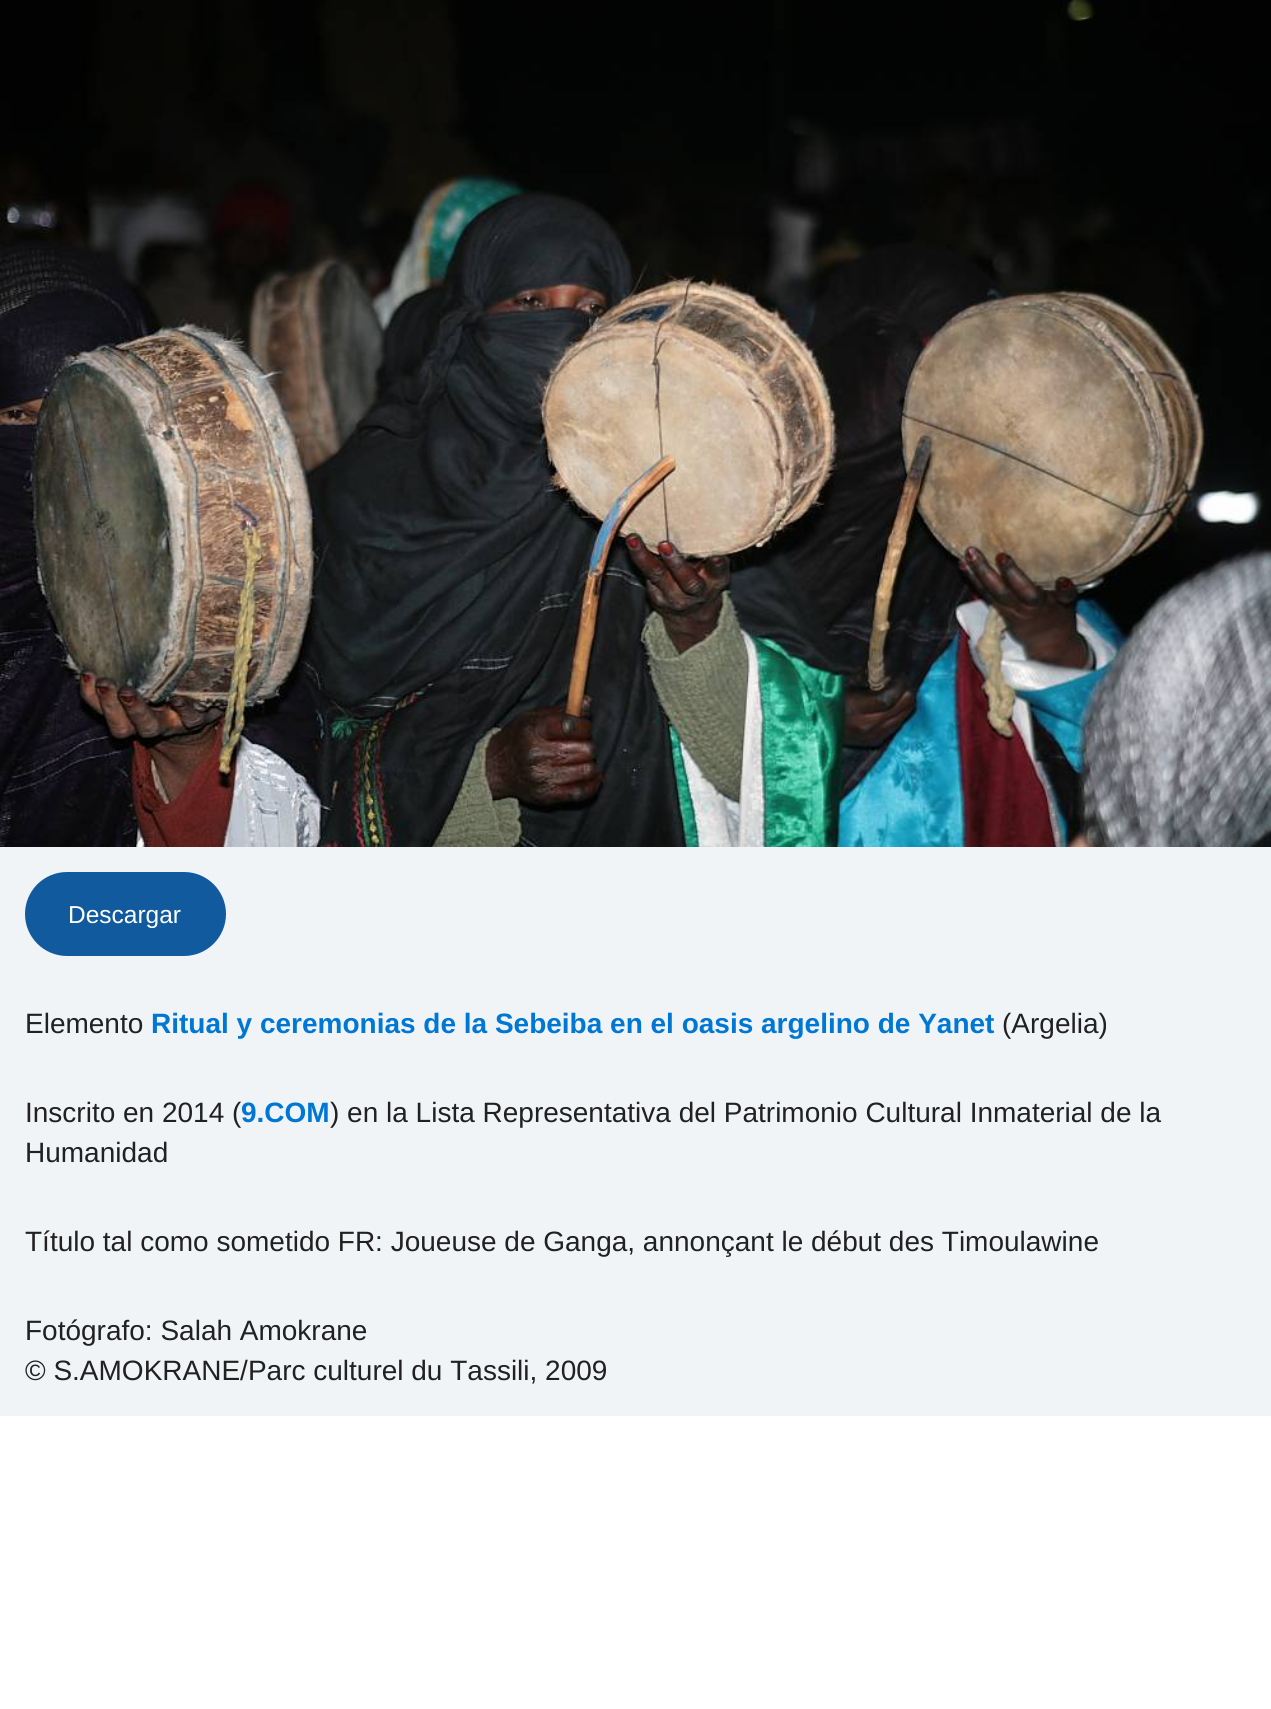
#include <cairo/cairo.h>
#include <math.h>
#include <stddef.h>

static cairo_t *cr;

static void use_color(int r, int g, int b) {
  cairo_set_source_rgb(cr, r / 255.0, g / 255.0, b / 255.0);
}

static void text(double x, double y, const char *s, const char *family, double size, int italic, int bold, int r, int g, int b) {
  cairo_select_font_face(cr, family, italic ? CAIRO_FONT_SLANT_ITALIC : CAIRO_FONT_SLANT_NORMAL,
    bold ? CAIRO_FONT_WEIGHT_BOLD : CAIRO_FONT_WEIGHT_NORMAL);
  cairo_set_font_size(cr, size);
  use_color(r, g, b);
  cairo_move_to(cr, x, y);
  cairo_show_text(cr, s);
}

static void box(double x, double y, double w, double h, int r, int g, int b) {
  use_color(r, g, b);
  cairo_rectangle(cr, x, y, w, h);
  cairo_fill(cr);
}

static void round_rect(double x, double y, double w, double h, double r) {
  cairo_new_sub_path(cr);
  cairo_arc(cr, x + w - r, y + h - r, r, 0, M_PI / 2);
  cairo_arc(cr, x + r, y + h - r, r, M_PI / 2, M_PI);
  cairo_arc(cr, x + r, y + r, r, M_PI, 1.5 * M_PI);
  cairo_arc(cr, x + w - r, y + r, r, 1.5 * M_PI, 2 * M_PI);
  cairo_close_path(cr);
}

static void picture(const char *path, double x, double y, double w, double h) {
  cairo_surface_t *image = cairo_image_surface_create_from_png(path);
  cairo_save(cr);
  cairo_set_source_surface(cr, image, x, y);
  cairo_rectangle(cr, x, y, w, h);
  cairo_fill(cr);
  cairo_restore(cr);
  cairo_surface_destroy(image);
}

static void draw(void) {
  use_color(255, 255, 255);
  cairo_paint(cr);
  box(0, 847, 1271, 569, 241, 244, 246);
  picture("img_01.png", 0, 0, 1271, 847);
  use_color(17, 90, 158);
  round_rect(25, 872, 201, 84, 42);
  cairo_fill(cr);
  text(68, 923, "Descargar", "Liberation Sans", 24.5, 0, 0, 255, 255, 255);
  text(25, 1033, "Elemento", "Liberation Sans", 28, 0, 0, 33, 33, 33);
  text(151, 1033, "Ritual y ceremonias de la Sebeiba en el oasis argelino de Yanet", "Liberation Sans", 28, 0, 1, 0, 119, 212);
  text(1002, 1033, "(Argelia)", "Liberation Sans", 28, 0, 0, 33, 33, 33);
  text(25, 1122, "Inscrito en 2014 (", "Liberation Sans", 28, 0, 0, 33, 33, 33);
  text(241, 1122, "9.COM", "Liberation Sans", 28, 0, 1, 0, 119, 212);
  text(330, 1122, ") en la Lista Representativa del Patrimonio Cultural Inmaterial de la", "Liberation Sans", 28, 0, 0, 33, 33, 33);
  text(25, 1162, "Humanidad", "Liberation Sans", 28, 0, 0, 33, 33, 33);
  text(25, 1251, "Título tal como sometido FR: Joueuse de Ganga, annonçant le début des Timoulawine", "Liberation Sans", 28, 0, 0, 33, 33, 33);
  text(25, 1340, "Fotógrafo: Salah Amokrane", "Liberation Sans", 28, 0, 0, 33, 33, 33);
  text(25, 1380, "© S.AMOKRANE/Parc culturel du Tassili, 2009", "Liberation Sans", 28, 0, 0, 33, 33, 33);
}

int main(void) {
  cairo_surface_t *surface = cairo_image_surface_create(CAIRO_FORMAT_RGB24, 1271, 1709);
  cr = cairo_create(surface);
  cairo_font_options_t *options = cairo_font_options_create();
  cairo_font_options_set_hint_metrics(options, CAIRO_HINT_METRICS_OFF);
  cairo_font_options_set_hint_style(options, CAIRO_HINT_STYLE_NONE);
  cairo_set_font_options(cr, options);
  cairo_set_miter_limit(cr, 4);
  draw();
  cairo_surface_write_to_png(surface, "out.png");
  cairo_font_options_destroy(options);
  cairo_destroy(cr);
  cairo_surface_destroy(surface);
  return 0;
}
